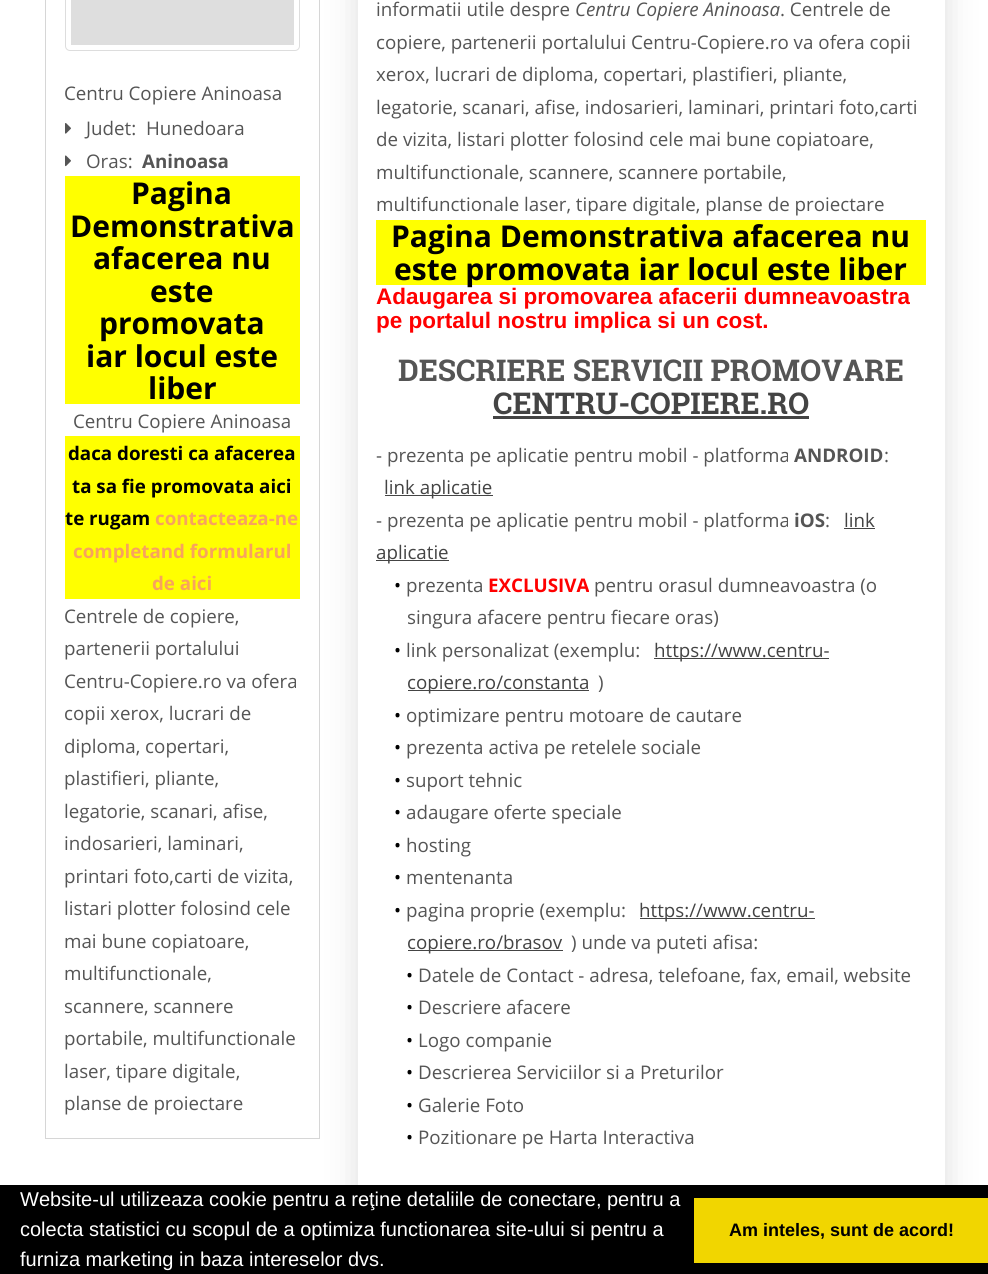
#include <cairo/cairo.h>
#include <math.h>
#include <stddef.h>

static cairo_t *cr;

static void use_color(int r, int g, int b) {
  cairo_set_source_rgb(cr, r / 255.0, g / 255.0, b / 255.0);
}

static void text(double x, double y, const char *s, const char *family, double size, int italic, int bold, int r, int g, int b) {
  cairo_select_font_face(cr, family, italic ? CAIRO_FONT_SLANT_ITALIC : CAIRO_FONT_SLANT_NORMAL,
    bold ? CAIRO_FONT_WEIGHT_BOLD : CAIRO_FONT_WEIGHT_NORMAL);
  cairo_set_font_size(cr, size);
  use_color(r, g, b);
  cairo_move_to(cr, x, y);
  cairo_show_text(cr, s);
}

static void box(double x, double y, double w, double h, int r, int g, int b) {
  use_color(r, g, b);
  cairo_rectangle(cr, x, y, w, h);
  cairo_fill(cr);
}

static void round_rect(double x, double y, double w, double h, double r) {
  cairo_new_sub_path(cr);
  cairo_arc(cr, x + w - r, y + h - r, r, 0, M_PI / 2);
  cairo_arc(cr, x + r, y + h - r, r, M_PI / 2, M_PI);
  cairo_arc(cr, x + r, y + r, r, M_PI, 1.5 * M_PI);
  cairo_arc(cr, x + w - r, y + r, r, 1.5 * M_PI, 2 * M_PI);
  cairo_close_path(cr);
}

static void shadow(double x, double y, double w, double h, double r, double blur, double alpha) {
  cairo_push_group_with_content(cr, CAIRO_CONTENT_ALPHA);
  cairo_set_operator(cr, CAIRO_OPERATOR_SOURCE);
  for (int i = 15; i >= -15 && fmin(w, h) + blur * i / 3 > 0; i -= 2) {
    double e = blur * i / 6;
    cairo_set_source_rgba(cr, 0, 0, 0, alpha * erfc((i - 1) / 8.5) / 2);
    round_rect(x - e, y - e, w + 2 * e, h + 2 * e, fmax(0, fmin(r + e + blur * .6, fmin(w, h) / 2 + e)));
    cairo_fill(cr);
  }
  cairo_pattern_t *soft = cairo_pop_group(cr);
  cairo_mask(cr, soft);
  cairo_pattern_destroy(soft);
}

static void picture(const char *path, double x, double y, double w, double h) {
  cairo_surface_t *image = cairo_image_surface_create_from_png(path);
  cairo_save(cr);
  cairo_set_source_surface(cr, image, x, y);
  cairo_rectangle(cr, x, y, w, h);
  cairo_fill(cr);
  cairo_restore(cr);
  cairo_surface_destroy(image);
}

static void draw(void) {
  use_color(255, 255, 255);
  cairo_paint(cr);
  cairo_rectangle(cr, 45.5, -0.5, 274, 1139);
  use_color(214, 214, 214);
  cairo_set_line_width(cr, 1);
  cairo_stroke(cr);
  round_rect(65.5, -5.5, 234, 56, 4.5);
  use_color(221, 221, 221);
  cairo_stroke(cr);
  box(71, 0, 223, 45, 222, 222, 222);
  picture("img_01.png", 65, 123, 6, 11);
  picture("img_02.png", 65, 155, 6, 12);
  box(65, 176, 235, 228, 255, 255, 0);
  box(65, 436, 235, 163, 255, 255, 0);
  cairo_save(cr);
  cairo_set_fill_rule(cr, CAIRO_FILL_RULE_EVEN_ODD);
  cairo_new_path(cr);
  cairo_move_to(cr, 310, 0);
  cairo_line_to(cr, 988, 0);
  cairo_line_to(cr, 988, 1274);
  cairo_line_to(cr, 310, 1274);
  cairo_close_path(cr);
  cairo_move_to(cr, 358, -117);
  cairo_line_to(cr, 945, -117);
  cairo_line_to(cr, 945, 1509);
  cairo_line_to(cr, 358, 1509);
  cairo_close_path(cr);
  cairo_clip(cr);
  use_color(221, 221, 221);
  shadow(358, -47, 587, 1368, 0, 15.5, 1);
  cairo_restore(cr);
  box(376, 220, 550, 65, 255, 255, 0);
  box(493, 416, 316, 3, 68, 68, 68);
  box(385, 495, 108, 1, 68, 68, 68);
  box(844, 528, 31, 1, 68, 68, 68);
  box(376, 560, 73, 1, 68, 68, 68);
  box(654, 658, 175, 1, 68, 68, 68);
  box(408, 690, 181, 1, 68, 68, 68);
  box(640, 918, 175, 1, 68, 68, 68);
  box(408, 950, 155, 1, 68, 68, 68);
  box(0, 1185, 988, 89, 0, 0, 0);
  box(694, 1198, 294, 65, 241, 214, 0);
  text(64, 100, "Centru Copiere Aninoasa", "Open Sans", 18.75, 0, 0, 85, 85, 85);
  text(86, 135, "Judet:", "Open Sans", 18.75, 0, 0, 85, 85, 85);
  text(146, 135, "Hunedoara", "Open Sans", 18.75, 0, 0, 85, 85, 85);
  text(86, 168, "Oras:", "Open Sans", 18.75, 0, 0, 85, 85, 85);
  text(142, 168, "Aninoasa", "Open Sans", 18.75, 0, 1, 85, 85, 85);
  text(131, 204, "Pagina", "Open Sans", 30, 0, 1, 0, 0, 0);
  text(70, 237, "Demonstrativa", "Open Sans", 30, 0, 1, 0, 0, 0);
  text(93, 269, "afacerea nu", "Open Sans", 30, 0, 1, 0, 0, 0);
  text(150, 302, "este", "Open Sans", 30, 0, 1, 0, 0, 0);
  text(99, 334, "promovata", "Open Sans", 30, 0, 1, 0, 0, 0);
  text(86, 367, "iar locul este", "Open Sans", 30, 0, 1, 0, 0, 0);
  text(148, 399, "liber", "Open Sans", 30, 0, 1, 0, 0, 0);
  text(73, 428, "Centru Copiere Aninoasa", "Open Sans", 18.75, 0, 0, 85, 85, 85);
  text(68, 460, "daca doresti ca afacerea", "Open Sans", 18.75, 0, 1, 0, 0, 0);
  text(72, 493, "ta sa fie promovata aici", "Open Sans", 18.75, 0, 1, 0, 0, 0);
  text(65, 525, "te rugam", "Open Sans", 18.75, 0, 1, 0, 0, 0);
  text(155, 525, "contacteaza-ne", "Open Sans", 18.75, 0, 1, 248, 163, 93);
  text(73, 558, "completand formularul", "Open Sans", 18.75, 0, 1, 248, 163, 93);
  text(152, 590, "de aici", "Open Sans", 18.75, 0, 1, 248, 163, 93);
  text(64, 623, "Centrele de copiere,", "Open Sans", 18.75, 0, 0, 85, 85, 85);
  text(64, 655, "partenerii portalului", "Open Sans", 18.75, 0, 0, 85, 85, 85);
  text(64, 688, "Centru-Copiere.ro va ofera", "Open Sans", 18.75, 0, 0, 85, 85, 85);
  text(64, 720, "copii xerox, lucrari de", "Open Sans", 18.75, 0, 0, 85, 85, 85);
  text(64, 753, "diploma, copertari,", "Open Sans", 18.75, 0, 0, 85, 85, 85);
  text(64, 785, "plastifieri, pliante,", "Open Sans", 18.75, 0, 0, 85, 85, 85);
  text(64, 818, "legatorie, scanari, afise,", "Open Sans", 18.75, 0, 0, 85, 85, 85);
  text(64, 850, "indosarieri, laminari,", "Open Sans", 18.75, 0, 0, 85, 85, 85);
  text(64, 883, "printari foto,carti de vizita,", "Open Sans", 18.75, 0, 0, 85, 85, 85);
  text(64, 915, "listari plotter folosind cele", "Open Sans", 18.75, 0, 0, 85, 85, 85);
  text(64, 948, "mai bune copiatoare,", "Open Sans", 18.75, 0, 0, 85, 85, 85);
  text(64, 980, "multifunctionale,", "Open Sans", 18.75, 0, 0, 85, 85, 85);
  text(64, 1013, "scannere, scannere", "Open Sans", 18.75, 0, 0, 85, 85, 85);
  text(64, 1045, "portabile, multifunctionale", "Open Sans", 18.75, 0, 0, 85, 85, 85);
  text(64, 1078, "laser, tipare digitale,", "Open Sans", 18.75, 0, 0, 85, 85, 85);
  text(64, 1110, "planse de proiectare", "Open Sans", 18.75, 0, 0, 85, 85, 85);
  text(376, 16, "informatii utile despre", "Open Sans", 18.75, 0, 0, 85, 85, 85);
  text(575, 16, "Centru Copiere Aninoasa", "Open Sans", 18.75, 1, 0, 85, 85, 85);
  text(780, 16, ". Centrele de", "Open Sans", 18.75, 0, 0, 85, 85, 85);
  text(376, 49, "copiere, partenerii portalului Centru-Copiere.ro va ofera copii", "Open Sans", 18.75, 0, 0, 85, 85, 85);
  text(376, 81, "xerox, lucrari de diploma, copertari, plastifieri, pliante,", "Open Sans", 18.75, 0, 0, 85, 85, 85);
  text(376, 114, "legatorie, scanari, afise, indosarieri, laminari, printari foto,carti", "Open Sans", 18.75, 0, 0, 85, 85, 85);
  text(376, 146, "de vizita, listari plotter folosind cele mai bune copiatoare,", "Open Sans", 18.75, 0, 0, 85, 85, 85);
  text(376, 179, "multifunctionale, scannere, scannere portabile,", "Open Sans", 18.75, 0, 0, 85, 85, 85);
  text(376, 211, "multifunctionale laser, tipare digitale, planse de proiectare", "Open Sans", 18.75, 0, 0, 85, 85, 85);
  text(391, 247, "Pagina Demonstrativa afacerea nu", "Open Sans", 30, 0, 1, 0, 0, 0);
  text(394, 280, "este promovata iar locul este liber", "Open Sans", 30, 0, 1, 0, 0, 0);
  text(376, 304, "Adaugarea si promovarea afacerii dumneavoastra", "Liberation Sans", 22.5, 0, 1, 255, 0, 0);
  text(376, 328, "pe portalul nostru implica si un cost.", "Liberation Sans", 22.5, 0, 1, 255, 0, 0);
  text(398, 381, "DESCRIERE SERVICII PROMOVARE", "Roboto Slab", 30, 0, 1, 85, 85, 85);
  text(493, 414, "CENTRU-COPIERE.RO", "Roboto Slab", 30, 0, 1, 68, 68, 68);
  text(376, 462, "- prezenta pe aplicatie pentru mobil - platforma", "Open Sans", 18.75, 0, 0, 85, 85, 85);
  text(794, 462, "ANDROID", "Open Sans", 18.75, 0, 1, 85, 85, 85);
  text(884, 462, ":", "Open Sans", 18.75, 0, 0, 85, 85, 85);
  text(384, 494, "link aplicatie", "Open Sans", 18.75, 0, 0, 68, 68, 68);
  text(376, 527, "- prezenta pe aplicatie pentru mobil - platforma", "Open Sans", 18.75, 0, 0, 85, 85, 85);
  text(794, 527, "iOS", "Open Sans", 18.75, 0, 1, 85, 85, 85);
  text(825, 527, ":", "Open Sans", 18.75, 0, 0, 85, 85, 85);
  text(844, 527, "link", "Open Sans", 18.75, 0, 0, 68, 68, 68);
  text(376, 559, "aplicatie", "Open Sans", 18.75, 0, 0, 68, 68, 68);
  text(394, 592, "•", "Open Sans", 18.75, 0, 0, 0, 0, 0);
  text(406, 592, "prezenta", "Open Sans", 18.75, 0, 0, 85, 85, 85);
  text(488, 592, "EXCLUSIVA", "Open Sans", 18.75, 0, 1, 255, 0, 0);
  text(594, 592, "pentru orasul dumneavoastra (o", "Open Sans", 18.75, 0, 0, 85, 85, 85);
  text(407, 624, "singura afacere pentru fiecare oras)", "Open Sans", 18.75, 0, 0, 85, 85, 85);
  text(394, 657, "•", "Open Sans", 18.75, 0, 0, 0, 0, 0);
  text(406, 657, "link personalizat (exemplu:", "Open Sans", 18.75, 0, 0, 85, 85, 85);
  text(654, 657, "https://www.centru-", "Open Sans", 18.75, 0, 0, 68, 68, 68);
  text(407, 689, "copiere.ro/constanta", "Open Sans", 18.75, 0, 0, 68, 68, 68);
  text(598, 689, ")", "Open Sans", 18.75, 0, 0, 85, 85, 85);
  text(394, 722, "•", "Open Sans", 18.75, 0, 0, 0, 0, 0);
  text(406, 722, "optimizare pentru motoare de cautare", "Open Sans", 18.75, 0, 0, 85, 85, 85);
  text(394, 754, "•", "Open Sans", 18.75, 0, 0, 0, 0, 0);
  text(406, 754, "prezenta activa pe retelele sociale", "Open Sans", 18.75, 0, 0, 85, 85, 85);
  text(394, 787, "•", "Open Sans", 18.75, 0, 0, 0, 0, 0);
  text(406, 787, "suport tehnic", "Open Sans", 18.75, 0, 0, 85, 85, 85);
  text(394, 819, "•", "Open Sans", 18.75, 0, 0, 0, 0, 0);
  text(406, 819, "adaugare oferte speciale", "Open Sans", 18.75, 0, 0, 85, 85, 85);
  text(394, 852, "•", "Open Sans", 18.75, 0, 0, 0, 0, 0);
  text(406, 852, "hosting", "Open Sans", 18.75, 0, 0, 85, 85, 85);
  text(394, 884, "•", "Open Sans", 18.75, 0, 0, 0, 0, 0);
  text(406, 884, "mentenanta", "Open Sans", 18.75, 0, 0, 85, 85, 85);
  text(394, 917, "•", "Open Sans", 18.75, 0, 0, 0, 0, 0);
  text(406, 917, "pagina proprie (exemplu:", "Open Sans", 18.75, 0, 0, 85, 85, 85);
  text(639, 917, "https://www.centru-", "Open Sans", 18.75, 0, 0, 68, 68, 68);
  text(407, 949, "copiere.ro/brasov", "Open Sans", 18.75, 0, 0, 68, 68, 68);
  text(571, 949, ") unde va puteti afisa:", "Open Sans", 18.75, 0, 0, 85, 85, 85);
  text(406, 982, "•", "Open Sans", 18.75, 0, 0, 0, 0, 0);
  text(418, 982, "Datele de Contact - adresa, telefoane, fax, email, website", "Open Sans", 18.75, 0, 0, 85, 85, 85);
  text(406, 1014, "•", "Open Sans", 18.75, 0, 0, 0, 0, 0);
  text(418, 1014, "Descriere afacere", "Open Sans", 18.75, 0, 0, 85, 85, 85);
  text(406, 1047, "•", "Open Sans", 18.75, 0, 0, 0, 0, 0);
  text(418, 1047, "Logo companie", "Open Sans", 18.75, 0, 0, 85, 85, 85);
  text(406, 1079, "•", "Open Sans", 18.75, 0, 0, 0, 0, 0);
  text(418, 1079, "Descrierea Serviciilor si a Preturilor", "Open Sans", 18.75, 0, 0, 85, 85, 85);
  text(406, 1112, "•", "Open Sans", 18.75, 0, 0, 0, 0, 0);
  text(418, 1112, "Galerie Foto", "Open Sans", 18.75, 0, 0, 85, 85, 85);
  text(406, 1144, "•", "Open Sans", 18.75, 0, 0, 0, 0, 0);
  text(418, 1144, "Pozitionare pe Harta Interactiva", "Open Sans", 18.75, 0, 0, 85, 85, 85);
  text(20, 1206, "Website-ul utilizeaza cookie pentru a reţine detaliile de conectare, pentru a", "Liberation Sans", 20, 0, 0, 255, 255, 255);
  text(20, 1236, "colecta statistici cu scopul de a optimiza functionarea site-ului si pentru a", "Liberation Sans", 20, 0, 0, 255, 255, 255);
  text(20, 1266, "furniza marketing in baza intereselor dvs.", "Liberation Sans", 20, 0, 0, 255, 255, 255);
  text(729, 1236, "Am inteles, sunt de acord!", "Liberation Sans", 18, 0, 1, 0, 0, 0);
}

int main(void) {
  cairo_surface_t *surface = cairo_image_surface_create(CAIRO_FORMAT_RGB24, 988, 1274);
  cr = cairo_create(surface);
  cairo_font_options_t *options = cairo_font_options_create();
  cairo_font_options_set_hint_metrics(options, CAIRO_HINT_METRICS_OFF);
  cairo_font_options_set_hint_style(options, CAIRO_HINT_STYLE_NONE);
  cairo_set_font_options(cr, options);
  cairo_set_miter_limit(cr, 4);
  draw();
  cairo_surface_write_to_png(surface, "out.png");
  cairo_font_options_destroy(options);
  cairo_destroy(cr);
  cairo_surface_destroy(surface);
  return 0;
}
